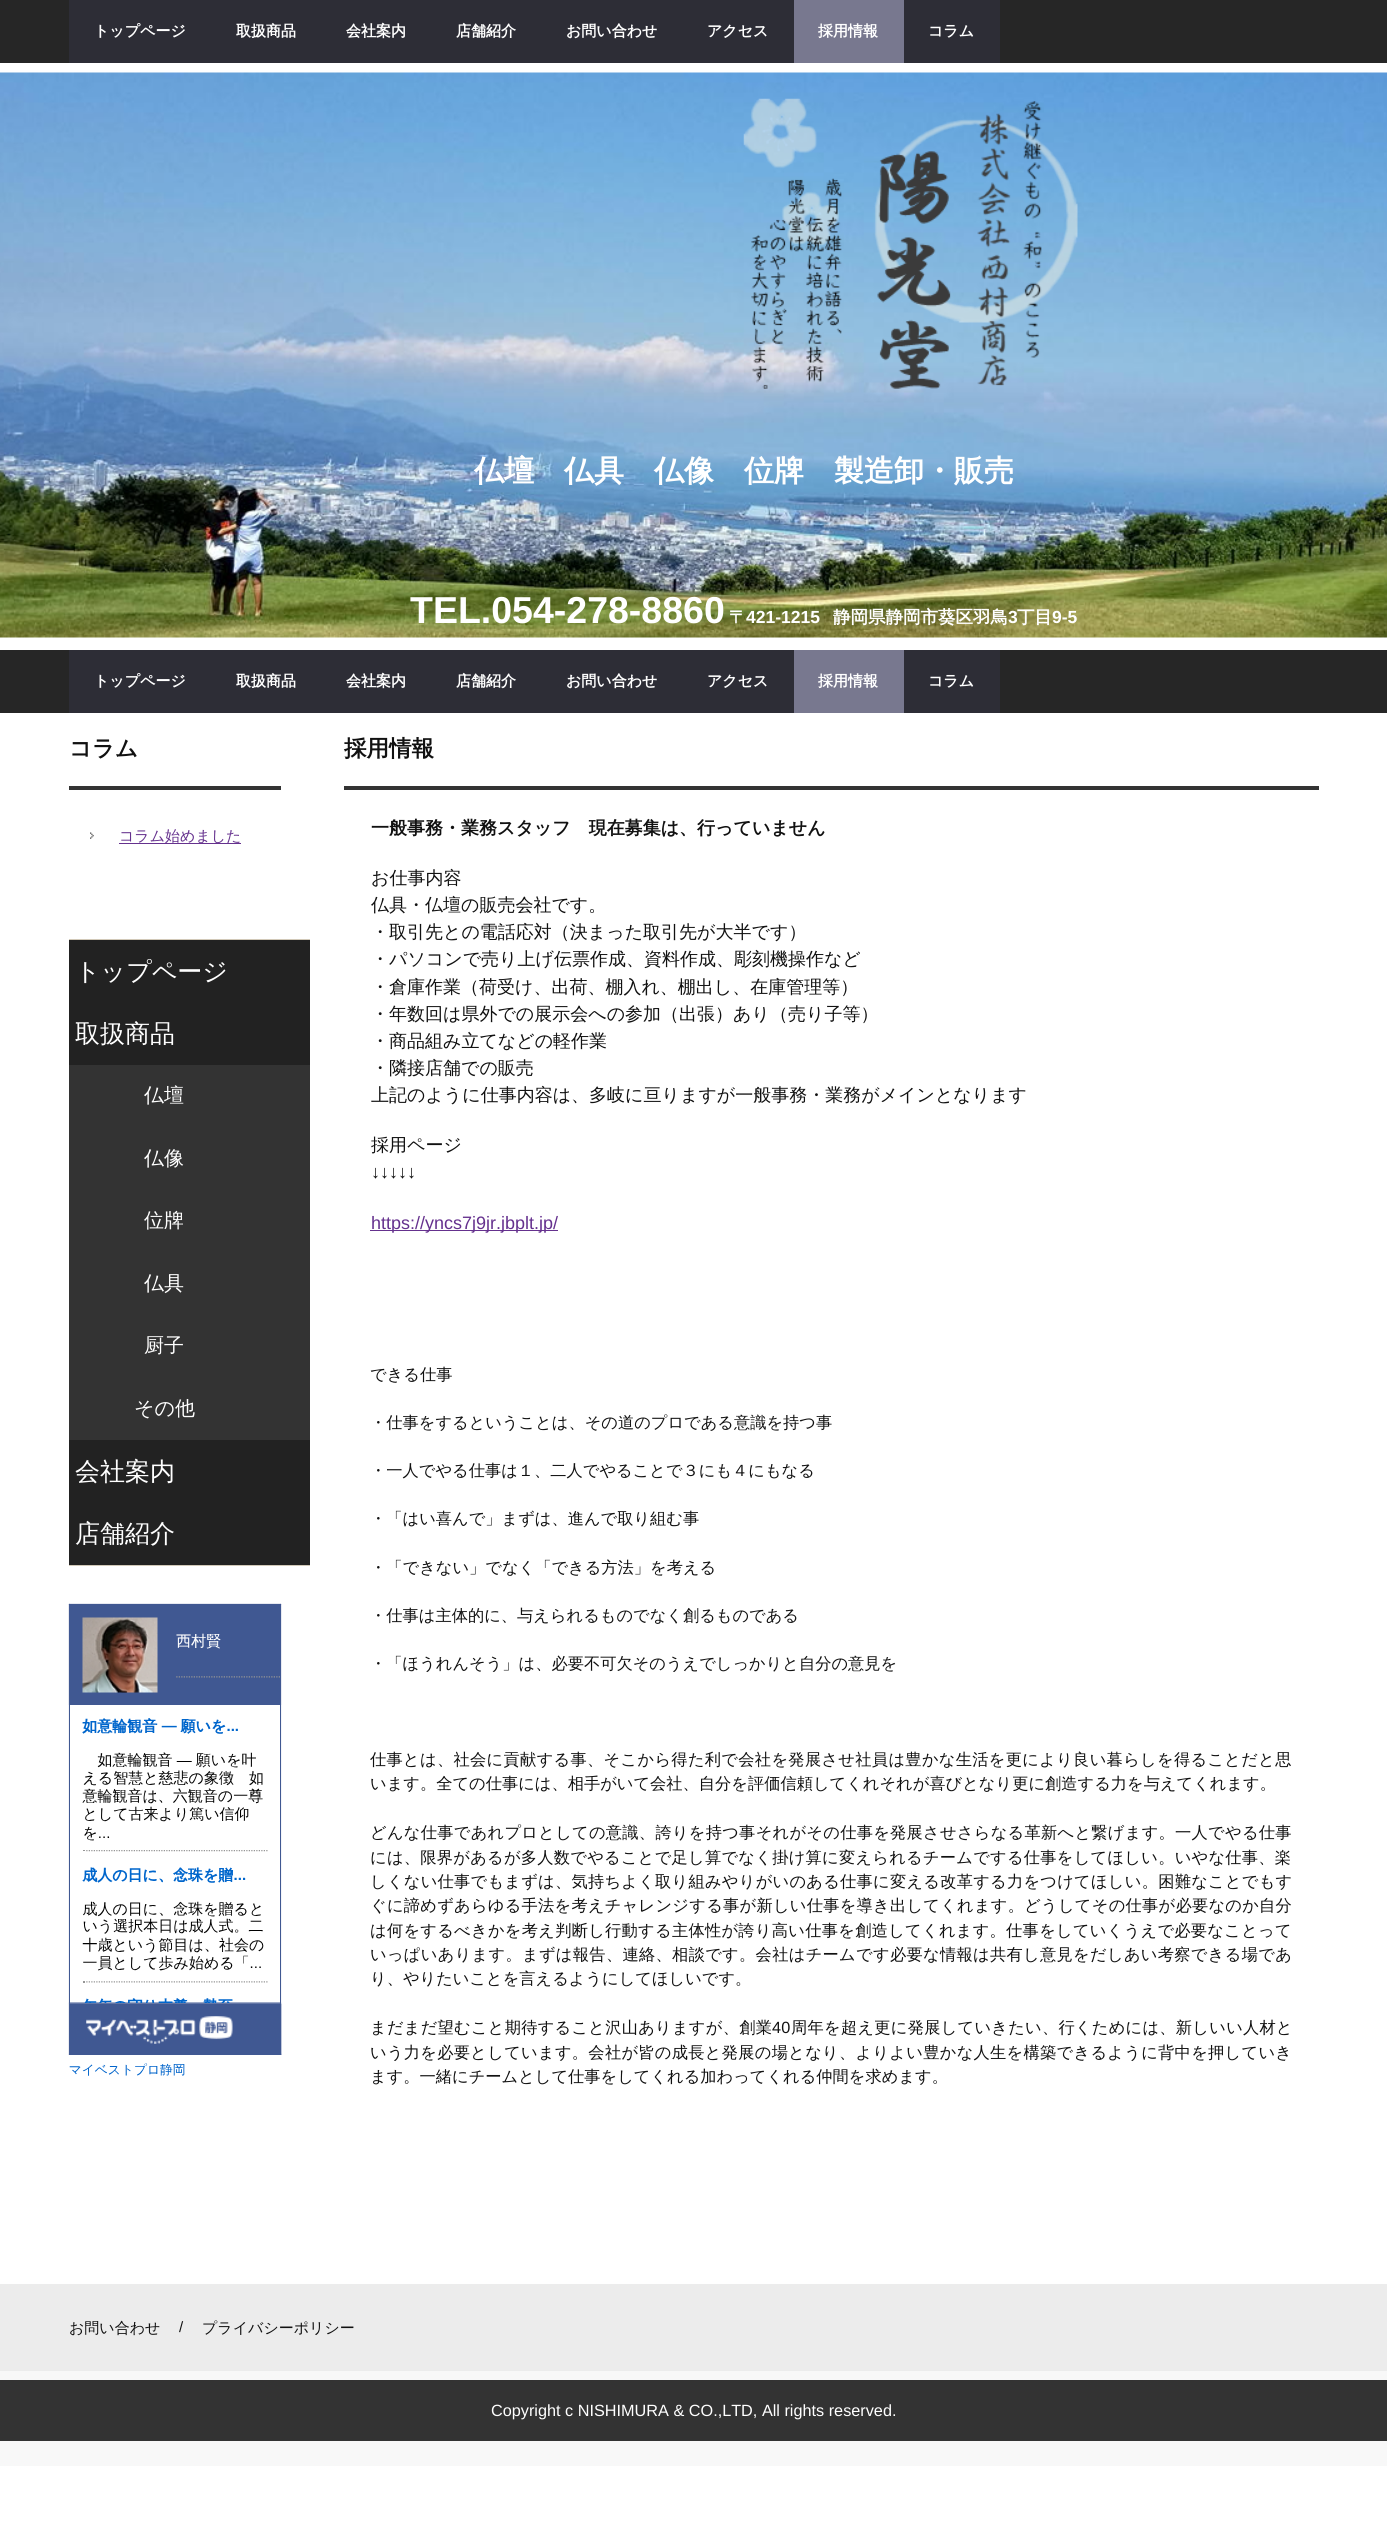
#include <cairo/cairo.h>
#include <math.h>
#include <stddef.h>

static cairo_t *cr;

static void use_color(int r, int g, int b) {
  cairo_set_source_rgb(cr, r / 255.0, g / 255.0, b / 255.0);
}

static void text(double x, double y, const char *s, const char *family, double size, int italic, int bold, int r, int g, int b) {
  cairo_select_font_face(cr, family, italic ? CAIRO_FONT_SLANT_ITALIC : CAIRO_FONT_SLANT_NORMAL,
    bold ? CAIRO_FONT_WEIGHT_BOLD : CAIRO_FONT_WEIGHT_NORMAL);
  cairo_set_font_size(cr, size);
  use_color(r, g, b);
  cairo_move_to(cr, x, y);
  cairo_show_text(cr, s);
}

static void spaced_text(double x, double y, const char *s, double letter, double word) {
  cairo_move_to(cr, x, y);
  while (*s) {
    char ch[5] = {0};
    int n = 0;
    do ch[n++] = *s++; while ((*s & 0xC0) == 0x80);
    cairo_show_text(cr, ch);
    cairo_rel_move_to(cr, letter + word * (*ch == ' '), 0);
  }
}

static void box(double x, double y, double w, double h, int r, int g, int b) {
  use_color(r, g, b);
  cairo_rectangle(cr, x, y, w, h);
  cairo_fill(cr);
}

static void picture(const char *path, double x, double y, double w, double h) {
  cairo_surface_t *image = cairo_image_surface_create_from_png(path);
  cairo_save(cr);
  cairo_set_source_surface(cr, image, x, y);
  cairo_rectangle(cr, x, y, w, h);
  cairo_fill(cr);
  cairo_restore(cr);
  cairo_surface_destroy(image);
}

static void draw(void) {
  use_color(255, 255, 255);
  cairo_paint(cr);
  box(0, 0, 1387, 63, 38, 38, 38);
  box(69, 0, 725, 63, 45, 45, 54);
  box(794, 0, 110, 63, 120, 120, 143);
  box(904, 0, 96, 63, 45, 45, 54);
  picture("img_01.png", 0, 72, 1387, 566);
  picture("img_02.png", 743, 98, 335, 291);
  box(0, 650, 1387, 63, 38, 38, 38);
  box(69, 650, 725, 63, 45, 45, 54);
  box(794, 650, 110, 63, 120, 120, 143);
  box(904, 650, 96, 63, 45, 45, 54);
  box(69, 786, 212, 4, 51, 51, 51);
  picture("img_03.png", 90, 832, 4, 7);
  box(119, 843, 122, 1, 101, 49, 142);
  box(69, 939, 241, 1, 210, 201, 184);
  box(69, 1565, 241, 1, 210, 201, 184);
  box(69, 940, 241, 125, 34, 34, 34);
  box(69, 1065, 241, 375, 51, 51, 51);
  box(69, 1440, 241, 125, 34, 34, 34);
  picture("img_04.png", 68, 1603, 214, 473);
  box(344, 786, 975, 4, 51, 51, 51);
  box(370, 1230, 188, 1, 101, 49, 142);
  box(0, 2371, 1387, 95, 248, 248, 248);
  box(0, 2284, 1387, 87, 236, 236, 236);
  box(0, 2380, 1387, 61, 51, 51, 51);
  text(94, 36, "トップページ", "WenQuanYi Zen Hei", 15, 0, 1, 255, 255, 255);
  text(236, 36, "取扱商品", "WenQuanYi Zen Hei", 15, 0, 1, 255, 255, 255);
  text(346, 36, "会社案内", "WenQuanYi Zen Hei", 15, 0, 1, 255, 255, 255);
  text(456, 36, "店舗紹介", "WenQuanYi Zen Hei", 15, 0, 1, 255, 255, 255);
  text(566, 36, "お問い合わせ", "WenQuanYi Zen Hei", 15, 0, 1, 255, 255, 255);
  text(707, 36, "アクセス", "WenQuanYi Zen Hei", 15, 0, 1, 255, 255, 255);
  text(818, 36, "採用情報", "WenQuanYi Zen Hei", 15, 0, 1, 255, 255, 255);
  text(928, 36, "コラム", "WenQuanYi Zen Hei", 15, 0, 1, 255, 255, 255);
  text(474, 481, "仏壇　仏具　仏像　位牌　製造卸・販売", "WenQuanYi Zen Hei", 30, 0, 1, 255, 255, 255);
  text(410, 623, "TEL.054-278-8860", "Liberation Sans", 37.5, 0, 1, 255, 255, 255);
  text(729, 623, "〒", "WenQuanYi Zen Hei", 17.5, 0, 1, 255, 255, 255);
  text(746, 623, "421-1215", "Liberation Sans", 17.5, 0, 1, 255, 255, 255);
  text(833, 623, "静岡県静岡市葵区羽鳥", "WenQuanYi Zen Hei", 17.5, 0, 1, 255, 255, 255);
  text(1008, 623, "3", "Liberation Sans", 17.5, 0, 1, 255, 255, 255);
  text(1017, 623, "丁目", "WenQuanYi Zen Hei", 17.5, 0, 1, 255, 255, 255);
  text(1052, 623, "9-5", "Liberation Sans", 17.5, 0, 1, 255, 255, 255);
  text(94, 686, "トップページ", "WenQuanYi Zen Hei", 15, 0, 1, 255, 255, 255);
  text(236, 686, "取扱商品", "WenQuanYi Zen Hei", 15, 0, 1, 255, 255, 255);
  text(346, 686, "会社案内", "WenQuanYi Zen Hei", 15, 0, 1, 255, 255, 255);
  text(456, 686, "店舗紹介", "WenQuanYi Zen Hei", 15, 0, 1, 255, 255, 255);
  text(566, 686, "お問い合わせ", "WenQuanYi Zen Hei", 15, 0, 1, 255, 255, 255);
  text(707, 686, "アクセス", "WenQuanYi Zen Hei", 15, 0, 1, 255, 255, 255);
  text(818, 686, "採用情報", "WenQuanYi Zen Hei", 15, 0, 1, 255, 255, 255);
  text(928, 686, "コラム", "WenQuanYi Zen Hei", 15, 0, 1, 255, 255, 255);
  text(69, 756, "コラム", "WenQuanYi Zen Hei", 22.5, 0, 1, 17, 17, 17);
  text(119, 841, "コラム始めました", "WenQuanYi Zen Hei Medium", 15, 0, 0, 101, 49, 142);
  text(75, 980, "トップページ", "WenQuanYi Zen Hei Medium", 25, 0, 0, 255, 255, 255);
  text(75, 1042, "取扱商品", "WenQuanYi Zen Hei Medium", 25, 0, 0, 255, 255, 255);
  text(144, 1102, "仏壇", "WenQuanYi Zen Hei Medium", 20, 0, 0, 255, 255, 255);
  text(144, 1165, "仏像", "WenQuanYi Zen Hei Medium", 20, 0, 0, 255, 255, 255);
  text(144, 1227, "位牌", "WenQuanYi Zen Hei Medium", 20, 0, 0, 255, 255, 255);
  text(144, 1290, "仏具", "WenQuanYi Zen Hei Medium", 20, 0, 0, 255, 255, 255);
  text(144, 1352, "厨子", "WenQuanYi Zen Hei Medium", 20, 0, 0, 255, 255, 255);
  text(134, 1415, "その他", "WenQuanYi Zen Hei Medium", 20, 0, 0, 255, 255, 255);
  text(75, 1480, "会社案内", "WenQuanYi Zen Hei Medium", 25, 0, 0, 255, 255, 255);
  text(75, 1542, "店舗紹介", "WenQuanYi Zen Hei Medium", 25, 0, 0, 255, 255, 255);
  text(344, 756, "採用情報", "WenQuanYi Zen Hei", 22.5, 0, 1, 17, 17, 17);
  text(371, 834, "一般事務・業務スタッフ　現在募集は、行っていません", "WenQuanYi Zen Hei", 18, 0, 1, 17, 17, 17);
  text(371, 884, "お仕事内容", "WenQuanYi Zen Hei Medium", 18, 0, 0, 17, 17, 17);
  text(371, 911, "仏具・仏壇の販売会社です。", "WenQuanYi Zen Hei Medium", 18, 0, 0, 17, 17, 17);
  text(371, 938, "・取引先との電話応対（決まった取引先が大半です）", "WenQuanYi Zen Hei Medium", 18, 0, 0, 17, 17, 17);
  text(371, 965, "・パソコンで売り上げ伝票作成、資料作成、彫刻機操作など", "WenQuanYi Zen Hei Medium", 18, 0, 0, 17, 17, 17);
  text(371, 993, "・倉庫作業（荷受け、出荷、棚入れ、棚出し、在庫管理等）", "WenQuanYi Zen Hei Medium", 18, 0, 0, 17, 17, 17);
  text(371, 1020, "・年数回は県外での展示会への参加（出張）あり（売り子等）", "WenQuanYi Zen Hei Medium", 18, 0, 0, 17, 17, 17);
  text(371, 1047, "・商品組み立てなどの軽作業", "WenQuanYi Zen Hei Medium", 18, 0, 0, 17, 17, 17);
  text(371, 1074, "・隣接店舗での販売", "WenQuanYi Zen Hei Medium", 18, 0, 0, 17, 17, 17);
  text(371, 1101, "上記のように仕事内容は、多岐に亘りますが一般事務・業務がメインとなります", "WenQuanYi Zen Hei Medium", 18, 0, 0, 17, 17, 17);
  text(371, 1151, "採用ページ", "WenQuanYi Zen Hei Medium", 18, 0, 0, 17, 17, 17);
  text(371, 1178, "↓↓↓↓↓", "Liberation Sans", 18, 0, 0, 17, 17, 17);
  text(371, 1229, "https://yncs7j9jr.jbplt.jp/", "Liberation Sans", 18, 0, 0, 101, 49, 142);
  text(370, 1380, "できる仕事", "WenQuanYi Zen Hei Medium", 16.25, 0, 0, 17, 17, 17);
  text(370, 1428, "・仕事をするということは、その道のプロである意識を持つ事", "WenQuanYi Zen Hei Medium", 16.25, 0, 0, 17, 17, 17);
  text(370, 1476, "・一人でやる仕事は１、二人でやることで３にも４にもなる", "WenQuanYi Zen Hei Medium", 16.25, 0, 0, 17, 17, 17);
  text(370, 1524, "・「はい喜んで」まずは、進んで取り組む事", "WenQuanYi Zen Hei Medium", 16.25, 0, 0, 17, 17, 17);
  text(370, 1573, "・「できない」でなく「できる方法」を考える", "WenQuanYi Zen Hei Medium", 16.25, 0, 0, 17, 17, 17);
  text(370, 1621, "・仕事は主体的に、与えられるものでなく創るものである", "WenQuanYi Zen Hei Medium", 16.25, 0, 0, 17, 17, 17);
  text(370, 1669, "・「ほうれんそう」は、必要不可欠そのうえでしっかりと自分の意見を", "WenQuanYi Zen Hei Medium", 16.25, 0, 0, 17, 17, 17);
  spaced_text(370, 1765, "仕事とは、社会に貢献する事、そこから得た利で会社を発展させ社員は豊かな生活を更により良い暮らしを得ることだと思", 0.3, 0);
  text(370, 1789, "います。全ての仕事には、相手がいて会社、自分を評価信頼してくれそれが喜びとなり更に創造する力を与えてくれます。", "WenQuanYi Zen Hei Medium", 16.25, 0, 0, 17, 17, 17);
  spaced_text(370, 1838, "どんな仕事であれプロとしての意識、誇りを持つ事それがその仕事を発展させさらなる革新へと繋げます。一人でやる仕事", 0.27, 0);
  spaced_text(370, 1863, "には、限界があるが多人数でやることで足し算でなく掛け算に変えられるチームでする仕事をしてほしい。いやな仕事、楽", 0.25, 0);
  spaced_text(370, 1887, "しくない仕事でもまずは、気持ちよく取り組みやりがいのある仕事に変える改革する力をつけてほしい。困難なことでもす", 0.25, 0);
  spaced_text(370, 1911, "ぐに諦めずあらゆる手法を考えチャレンジする事が新しい仕事を導き出してくれます。どうしてその仕事が必要なのか自分", 0.25, 0);
  spaced_text(370, 1936, "は何をするべきかを考え判断し行動する主体性が誇り高い仕事を創造してくれます。仕事をしていくうえで必要なことって", 0.27, 0);
  spaced_text(370, 1960, "いっぱいあります。まずは報告、連絡、相談です。会社はチームです必要な情報は共有し意見をだしあい考察できる場であ", 0.3, 0);
  text(370, 1984, "り、やりたいことを言えるようにしてほしいです。", "WenQuanYi Zen Hei Medium", 16.25, 0, 0, 17, 17, 17);
  spaced_text(370, 2033, "まだまだ望むこと期待すること沢山ありますが、創業", 0.25, 0);
  cairo_select_font_face(cr, "Liberation Sans", CAIRO_FONT_SLANT_NORMAL, CAIRO_FONT_WEIGHT_NORMAL);
  spaced_text(772, 2033, "40", 0.25, 0);
  cairo_select_font_face(cr, "WenQuanYi Zen Hei Medium", CAIRO_FONT_SLANT_NORMAL, CAIRO_FONT_WEIGHT_NORMAL);
  spaced_text(791, 2033, "周年を超え更に発展していきたい、行くためには、新しいい人材と", 0.25, 0);
  spaced_text(370, 2058, "いう力を必要としています。会社が皆の成長と発展の場となり、よりよい豊かな人生を構築できるように背中を押していき", 0.28, 0);
  text(370, 2082, "ます。一緒にチームとして仕事をしてくれる加わってくれる仲間を求めます。", "WenQuanYi Zen Hei Medium", 16.25, 0, 0, 17, 17, 17);
  text(69, 2333, "お問い合わせ", "WenQuanYi Zen Hei Medium", 15, 0, 0, 17, 17, 17);
  text(179, 2332, "/", "Liberation Sans", 15, 0, 0, 17, 17, 17);
  text(202, 2333, "プライバシーポリシー", "WenQuanYi Zen Hei Medium", 15, 0, 0, 17, 17, 17);
  text(491, 2416, "Copyright c NISHIMURA & CO.,LTD, All rights reserved.", "Liberation Sans", 16.25, 0, 0, 255, 255, 255);
}

int main(void) {
  cairo_surface_t *surface = cairo_image_surface_create(CAIRO_FORMAT_RGB24, 1387, 2528);
  cr = cairo_create(surface);
  cairo_font_options_t *options = cairo_font_options_create();
  cairo_font_options_set_hint_metrics(options, CAIRO_HINT_METRICS_OFF);
  cairo_font_options_set_hint_style(options, CAIRO_HINT_STYLE_NONE);
  cairo_set_font_options(cr, options);
  cairo_set_miter_limit(cr, 4);
  draw();
  cairo_surface_write_to_png(surface, "out.png");
  cairo_font_options_destroy(options);
  cairo_destroy(cr);
  cairo_surface_destroy(surface);
  return 0;
}
